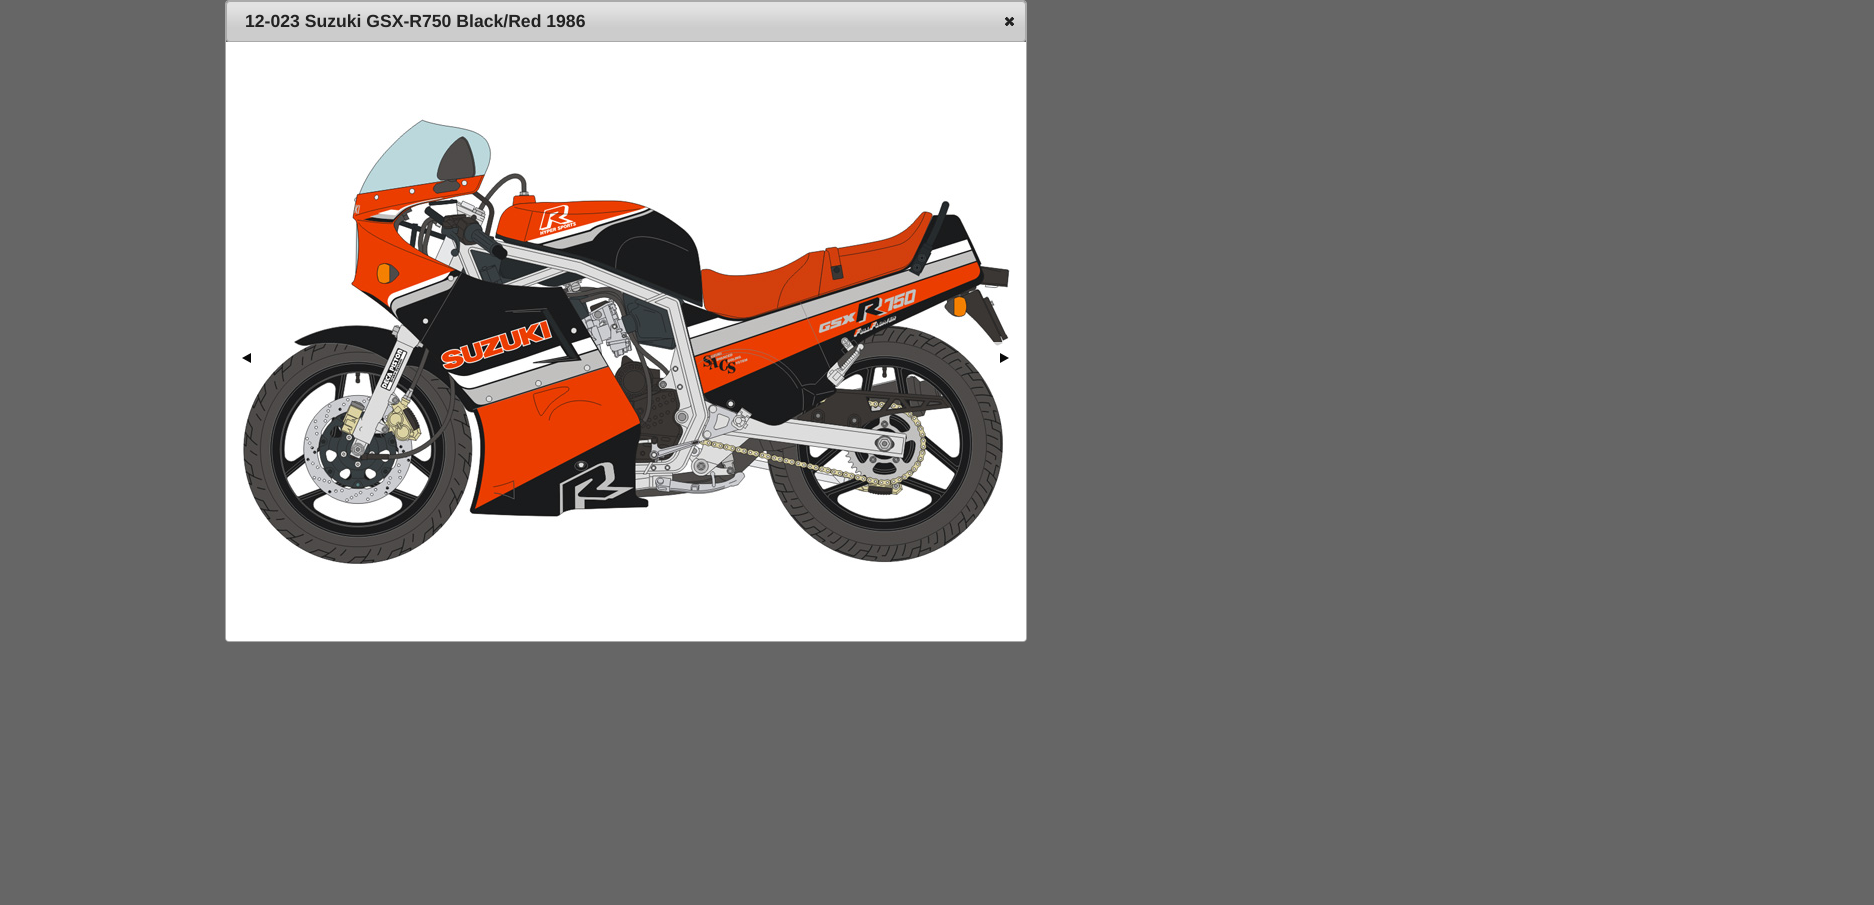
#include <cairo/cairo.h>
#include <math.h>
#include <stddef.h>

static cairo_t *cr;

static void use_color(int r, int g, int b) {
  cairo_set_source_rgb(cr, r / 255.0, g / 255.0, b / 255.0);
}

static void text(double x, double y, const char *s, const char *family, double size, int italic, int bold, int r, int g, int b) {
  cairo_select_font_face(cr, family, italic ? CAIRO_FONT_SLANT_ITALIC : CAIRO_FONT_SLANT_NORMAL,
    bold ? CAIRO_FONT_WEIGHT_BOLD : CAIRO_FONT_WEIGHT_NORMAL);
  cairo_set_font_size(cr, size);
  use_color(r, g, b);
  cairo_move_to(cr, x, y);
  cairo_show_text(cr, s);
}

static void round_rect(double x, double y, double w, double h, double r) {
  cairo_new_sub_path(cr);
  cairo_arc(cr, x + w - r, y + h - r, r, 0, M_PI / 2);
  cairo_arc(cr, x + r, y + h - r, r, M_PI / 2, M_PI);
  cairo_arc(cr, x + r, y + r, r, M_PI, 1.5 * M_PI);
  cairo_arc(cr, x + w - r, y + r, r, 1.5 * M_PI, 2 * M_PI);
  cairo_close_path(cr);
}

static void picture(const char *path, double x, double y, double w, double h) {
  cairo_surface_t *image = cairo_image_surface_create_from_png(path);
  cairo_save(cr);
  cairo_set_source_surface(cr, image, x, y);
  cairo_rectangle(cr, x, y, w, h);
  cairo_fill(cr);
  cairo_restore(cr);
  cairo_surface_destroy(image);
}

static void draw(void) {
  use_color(102, 102, 102);
  cairo_paint(cr);
  round_rect(225.5, 0.5, 801, 641, 3.5);
  use_color(170, 170, 170);
  cairo_set_line_width(cr, 1);
  cairo_stroke(cr);
  picture("img_01.png", 226, 1, 800, 41);
  round_rect(226.5, 1.5, 799, 40, 3.5);
  cairo_stroke(cr);
  picture("img_02.png", 1005, 17, 9, 9);
  use_color(255, 255, 255);
  cairo_new_path(cr);
  cairo_move_to(cr, 226, 42);
  cairo_line_to(cr, 1026, 42);
  cairo_line_to(cr, 1026, 638);
  cairo_curve_to(cr, 1026, 639.5, 1024.5, 641, 1023, 641);
  cairo_line_to(cr, 229, 641);
  cairo_curve_to(cr, 227.5, 641, 226, 639.5, 226, 638);
  cairo_close_path(cr);
  cairo_fill(cr);
  picture("img_03.png", 226, 114, 800, 527);
  picture("img_04.png", 242, 353, 9, 10);
  cairo_set_source_rgba(cr, 1, 1, 1, 0.75);
  round_rect(988, 342, 32, 32, 2);
  cairo_fill(cr);
  picture("img_05.png", 1000, 353, 9, 10);
  text(245, 27, "12-023 Suzuki GSX-R750 Black/Red 1986", "Liberation Sans", 17.6, 0, 1, 34, 34, 34);
}

int main(void) {
  cairo_surface_t *surface = cairo_image_surface_create(CAIRO_FORMAT_RGB24, 1874, 905);
  cr = cairo_create(surface);
  cairo_font_options_t *options = cairo_font_options_create();
  cairo_font_options_set_hint_metrics(options, CAIRO_HINT_METRICS_OFF);
  cairo_font_options_set_hint_style(options, CAIRO_HINT_STYLE_NONE);
  cairo_set_font_options(cr, options);
  cairo_set_miter_limit(cr, 4);
  draw();
  cairo_surface_write_to_png(surface, "out.png");
  cairo_font_options_destroy(options);
  cairo_destroy(cr);
  cairo_surface_destroy(surface);
  return 0;
}
